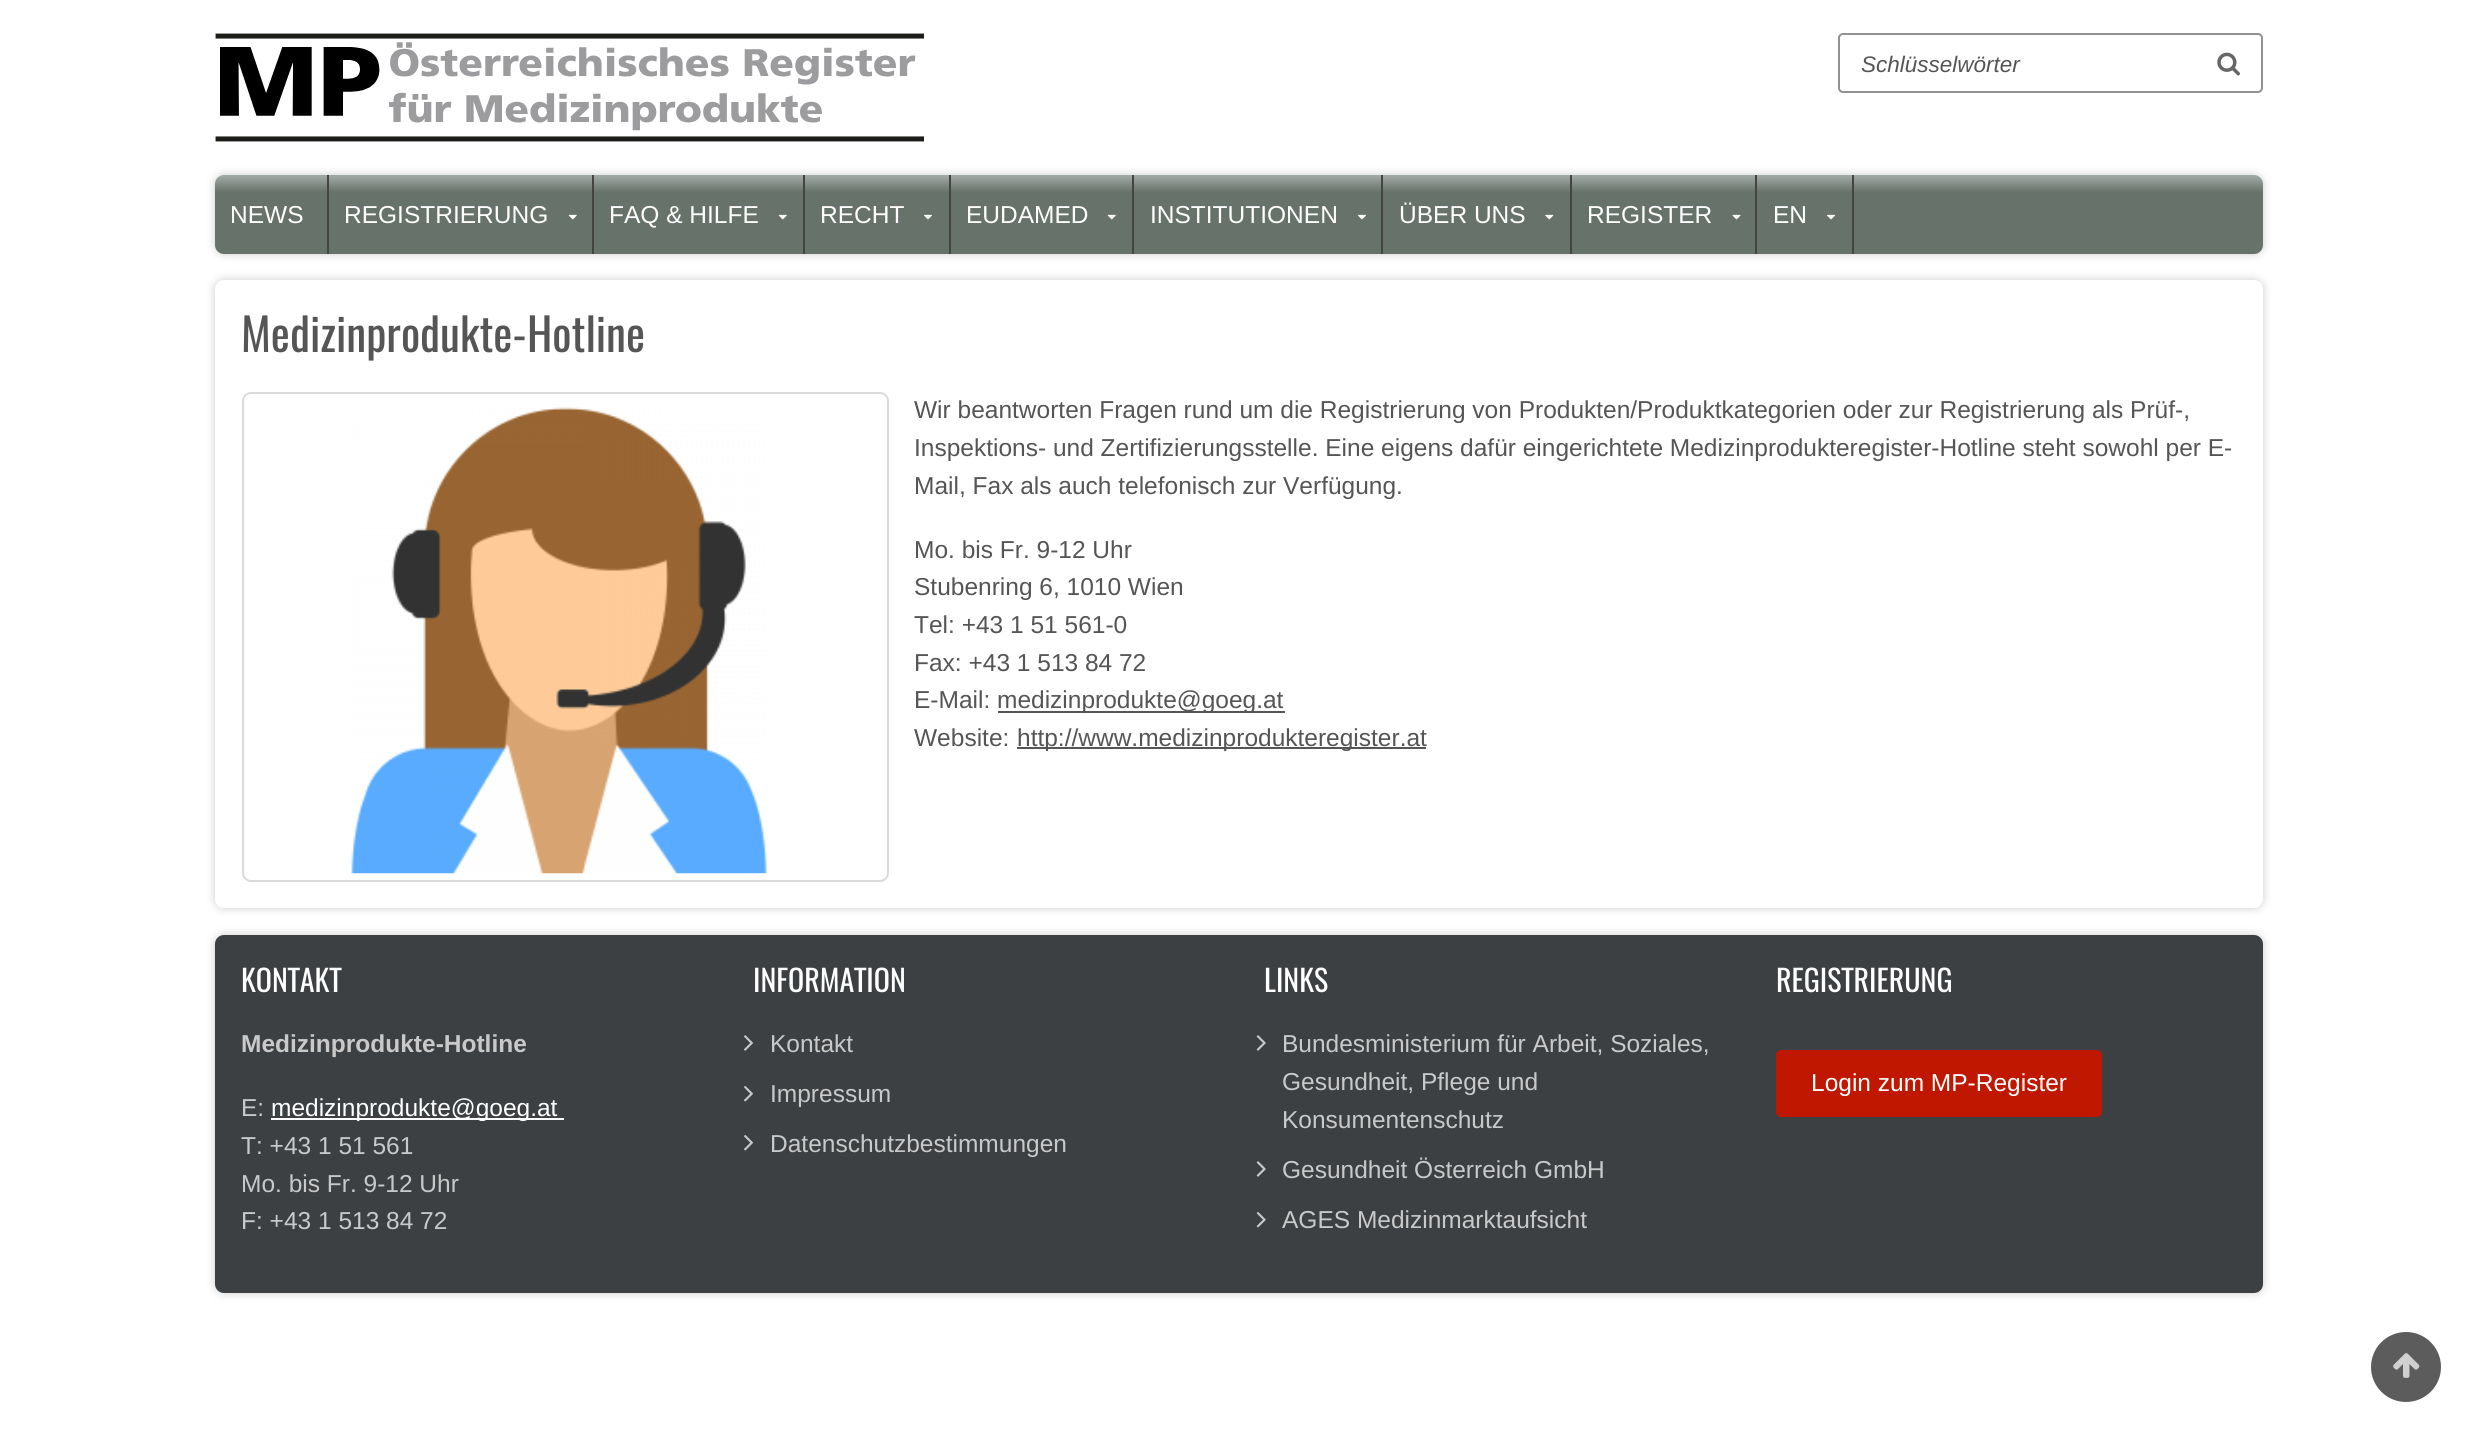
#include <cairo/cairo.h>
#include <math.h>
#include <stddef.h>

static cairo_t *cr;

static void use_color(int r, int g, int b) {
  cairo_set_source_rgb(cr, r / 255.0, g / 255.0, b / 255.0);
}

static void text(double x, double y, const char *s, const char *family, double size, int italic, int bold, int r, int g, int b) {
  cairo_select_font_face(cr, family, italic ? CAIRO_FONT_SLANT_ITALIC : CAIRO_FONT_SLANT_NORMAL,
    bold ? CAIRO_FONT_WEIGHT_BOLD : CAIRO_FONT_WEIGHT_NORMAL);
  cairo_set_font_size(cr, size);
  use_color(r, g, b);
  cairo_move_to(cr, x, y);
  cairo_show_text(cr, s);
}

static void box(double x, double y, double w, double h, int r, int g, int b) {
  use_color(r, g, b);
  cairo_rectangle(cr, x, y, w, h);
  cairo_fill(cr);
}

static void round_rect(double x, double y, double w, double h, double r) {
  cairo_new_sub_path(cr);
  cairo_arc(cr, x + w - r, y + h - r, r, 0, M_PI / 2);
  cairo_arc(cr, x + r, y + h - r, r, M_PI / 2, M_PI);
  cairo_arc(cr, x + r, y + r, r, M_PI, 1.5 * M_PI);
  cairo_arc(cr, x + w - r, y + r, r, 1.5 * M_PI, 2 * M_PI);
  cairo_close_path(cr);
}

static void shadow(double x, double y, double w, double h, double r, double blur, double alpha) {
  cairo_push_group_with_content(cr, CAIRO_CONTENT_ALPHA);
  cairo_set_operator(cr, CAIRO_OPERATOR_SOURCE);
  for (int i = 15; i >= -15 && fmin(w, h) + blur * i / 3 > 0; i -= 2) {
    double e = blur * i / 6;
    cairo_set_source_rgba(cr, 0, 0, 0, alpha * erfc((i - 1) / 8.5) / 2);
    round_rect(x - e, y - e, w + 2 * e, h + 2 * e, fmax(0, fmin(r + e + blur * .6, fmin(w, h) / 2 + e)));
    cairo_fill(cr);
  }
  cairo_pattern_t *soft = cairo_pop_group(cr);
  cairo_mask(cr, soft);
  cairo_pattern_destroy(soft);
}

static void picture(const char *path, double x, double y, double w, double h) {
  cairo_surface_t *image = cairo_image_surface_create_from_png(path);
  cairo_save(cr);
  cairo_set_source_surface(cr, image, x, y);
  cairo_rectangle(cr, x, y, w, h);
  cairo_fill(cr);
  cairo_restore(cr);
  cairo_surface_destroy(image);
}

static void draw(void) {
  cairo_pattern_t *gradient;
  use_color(255, 255, 255);
  cairo_paint(cr);
  picture("img_01.png", 215, 33, 709, 109);
  round_rect(1839, 34, 423, 58, 4);
  use_color(145, 145, 145);
  cairo_stroke(cr);
  picture("img_02.png", 2217, 52, 23, 24);
  use_color(204, 204, 204);
  shadow(215, 175, 2048, 79, 9, 4.5, 1);
  gradient = cairo_pattern_create_linear(1239, 175, 1239, 254);
  cairo_pattern_add_color_stop_rgba(gradient, 0, 0.639, 0.671, 0.651, 1);
  cairo_pattern_add_color_stop_rgba(gradient, 0.22, 0.404, 0.447, 0.42, 1);
  cairo_pattern_add_color_stop_rgba(gradient, 1, 0.404, 0.447, 0.42, 1);
  cairo_set_source(cr, gradient);
  cairo_pattern_destroy(gradient);
  round_rect(215, 175, 2048, 79, 9);
  cairo_fill(cr);
  box(327, 175, 2, 79, 68, 68, 68);
  picture("img_03.png", 568, 214, 9, 6);
  box(592, 175, 2, 79, 68, 68, 68);
  picture("img_03.png", 778, 214, 9, 6);
  box(803, 175, 2, 79, 68, 68, 68);
  picture("img_04.png", 924, 214, 8, 6);
  box(949, 175, 2, 79, 68, 68, 68);
  picture("img_03.png", 1107, 214, 9, 6);
  box(1132, 175, 2, 79, 68, 68, 68);
  picture("img_04.png", 1358, 214, 8, 6);
  box(1381, 175, 2, 79, 68, 68, 68);
  picture("img_05.png", 1545, 214, 9, 6);
  box(1570, 175, 2, 79, 68, 68, 68);
  picture("img_06.png", 1732, 214, 9, 6);
  box(1852, 175, 2, 79, 68, 68, 68);
  box(1755, 175, 2, 79, 68, 68, 68);
  picture("img_04.png", 1827, 214, 8, 6);
  use_color(204, 204, 204);
  shadow(215, 280, 2048, 628, 9, 4.5, 1);
  use_color(255, 255, 255);
  round_rect(215, 280, 2048, 628, 9);
  cairo_fill(cr);
  round_rect(243, 393, 645, 488, 8);
  use_color(218, 218, 218);
  cairo_stroke(cr);
  picture("img_07.png", 351, 407, 416, 467);
  box(998, 711, 287, 2, 85, 85, 85);
  box(1017, 747, 409, 2, 85, 85, 85);
  use_color(204, 204, 204);
  shadow(215, 935, 2048, 358, 9, 4.5, 1);
  use_color(60, 64, 67);
  round_rect(215, 935, 2048, 358, 9);
  cairo_fill(cr);
  box(271, 1118, 293, 2, 255, 255, 255);
  picture("img_08.png", 744, 1035, 9, 16);
  picture("img_09.png", 744, 1086, 9, 16);
  picture("img_09.png", 744, 1135, 9, 16);
  picture("img_10.png", 1256, 1035, 10, 16);
  picture("img_10.png", 1256, 1161, 10, 16);
  picture("img_11.png", 1256, 1212, 10, 16);
  use_color(192, 23, 0);
  round_rect(1776, 1050, 326, 67, 5);
  cairo_fill(cr);
  use_color(92, 92, 92);
  cairo_arc(cr, 2406, 1367, 35, 0, 2 * M_PI);
  cairo_fill(cr);
  picture("img_12.png", 2393, 1353, 27, 25);
  text(1861, 72, "Schlüsselwörter", "Liberation Sans", 22.5, 1, 0, 85, 85, 85);
  text(230, 223, "NEWS", "Liberation Sans", 24.5, 0, 0, 255, 255, 255);
  text(344, 223, "REGISTRIERUNG", "Liberation Sans", 24.5, 0, 0, 255, 255, 255);
  text(609, 223, "FAQ & HILFE", "Liberation Sans", 24.5, 0, 0, 255, 255, 255);
  text(820, 223, "RECHT", "Liberation Sans", 24.5, 0, 0, 255, 255, 255);
  text(966, 223, "EUDAMED", "Liberation Sans", 24.5, 0, 0, 255, 255, 255);
  text(1150, 223, "INSTITUTIONEN", "Liberation Sans", 24.5, 0, 0, 255, 255, 255);
  text(1399, 223, "ÜBER UNS", "Liberation Sans", 24.5, 0, 0, 255, 255, 255);
  text(1587, 223, "REGISTER", "Liberation Sans", 24.5, 0, 0, 255, 255, 255);
  text(1773, 223, "EN", "Liberation Sans", 24.5, 0, 0, 255, 255, 255);
  text(241, 352, "Medizinprodukte-Hotline", "Oswald", 45.25, 0, 0, 85, 85, 85);
  text(914, 418, "Wir beantworten Fragen rund um die Registrierung von Produkten/Produktkategorien oder zur Registrierung als Prüf-,", "Liberation Sans", 24.5, 0, 0, 85, 85, 85);
  text(914, 456, "Inspektions- und Zertifizierungsstelle. Eine eigens dafür eingerichtete Medizinprodukteregister-Hotline steht sowohl per E-", "Liberation Sans", 24.5, 0, 0, 85, 85, 85);
  text(914, 494, "Mail, Fax als auch telefonisch zur Verfügung.", "Liberation Sans", 24.5, 0, 0, 85, 85, 85);
  text(914, 558, "Mo. bis Fr. 9-12 Uhr", "Liberation Sans", 24.5, 0, 0, 85, 85, 85);
  text(914, 595, "Stubenring 6, 1010 Wien", "Liberation Sans", 24.5, 0, 0, 85, 85, 85);
  text(914, 633, "Tel: +43 1 51 561-0", "Liberation Sans", 24.5, 0, 0, 85, 85, 85);
  text(914, 671, "Fax: +43 1 513 84 72", "Liberation Sans", 24.5, 0, 0, 85, 85, 85);
  text(914, 708, "E-Mail:", "Liberation Sans", 24.5, 0, 0, 85, 85, 85);
  text(997, 708, "medizinprodukte@goeg.at", "Liberation Sans", 24.5, 0, 0, 85, 85, 85);
  text(914, 746, "Website:", "Liberation Sans", 24.5, 0, 0, 85, 85, 85);
  text(1017, 746, "http://www.medizinprodukteregister.at", "Liberation Sans", 24.5, 0, 0, 85, 85, 85);
  text(241, 992, "KONTAKT", "Oswald", 30, 0, 0, 255, 255, 255);
  text(241, 1052, "Medizinprodukte-Hotline", "Liberation Sans", 24.5, 0, 1, 201, 201, 201);
  text(241, 1116, "E:", "Liberation Sans", 24.5, 0, 0, 201, 201, 201);
  text(271, 1116, "medizinprodukte@goeg.at", "Liberation Sans", 24.5, 0, 0, 255, 255, 255);
  text(241, 1154, "T: +43 1 51 561", "Liberation Sans", 24.5, 0, 0, 201, 201, 201);
  text(241, 1192, "Mo. bis Fr. 9-12 Uhr", "Liberation Sans", 24.5, 0, 0, 201, 201, 201);
  text(241, 1229, "F: +43 1 513 84 72", "Liberation Sans", 24.5, 0, 0, 201, 201, 201);
  text(753, 992, "INFORMATION", "Oswald", 30, 0, 0, 255, 255, 255);
  text(770, 1052, "Kontakt", "Liberation Sans", 24.5, 0, 0, 201, 201, 201);
  text(770, 1102, "Impressum", "Liberation Sans", 24.5, 0, 0, 201, 201, 201);
  text(770, 1152, "Datenschutzbestimmungen", "Liberation Sans", 24.5, 0, 0, 201, 201, 201);
  text(1264, 992, "LINKS", "Oswald", 30, 0, 0, 255, 255, 255);
  text(1282, 1052, "Bundesministerium für Arbeit, Soziales,", "Liberation Sans", 24.5, 0, 0, 201, 201, 201);
  text(1282, 1090, "Gesundheit, Pflege und", "Liberation Sans", 24.5, 0, 0, 201, 201, 201);
  text(1282, 1128, "Konsumentenschutz", "Liberation Sans", 24.5, 0, 0, 201, 201, 201);
  text(1282, 1178, "Gesundheit Österreich GmbH", "Liberation Sans", 24.5, 0, 0, 201, 201, 201);
  text(1282, 1228, "AGES Medizinmarktaufsicht", "Liberation Sans", 24.5, 0, 0, 201, 201, 201);
  text(1776, 992, "REGISTRIERUNG", "Oswald", 30, 0, 0, 255, 255, 255);
  text(1811, 1091, "Login zum MP-Register", "Liberation Sans", 24.5, 0, 0, 255, 255, 255);
}

int main(void) {
  cairo_surface_t *surface = cairo_image_surface_create(CAIRO_FORMAT_RGB24, 2476, 1436);
  cr = cairo_create(surface);
  cairo_font_options_t *options = cairo_font_options_create();
  cairo_font_options_set_hint_metrics(options, CAIRO_HINT_METRICS_OFF);
  cairo_font_options_set_hint_style(options, CAIRO_HINT_STYLE_NONE);
  cairo_set_font_options(cr, options);
  cairo_set_miter_limit(cr, 4);
  draw();
  cairo_surface_write_to_png(surface, "out.png");
  cairo_font_options_destroy(options);
  cairo_destroy(cr);
  cairo_surface_destroy(surface);
  return 0;
}
